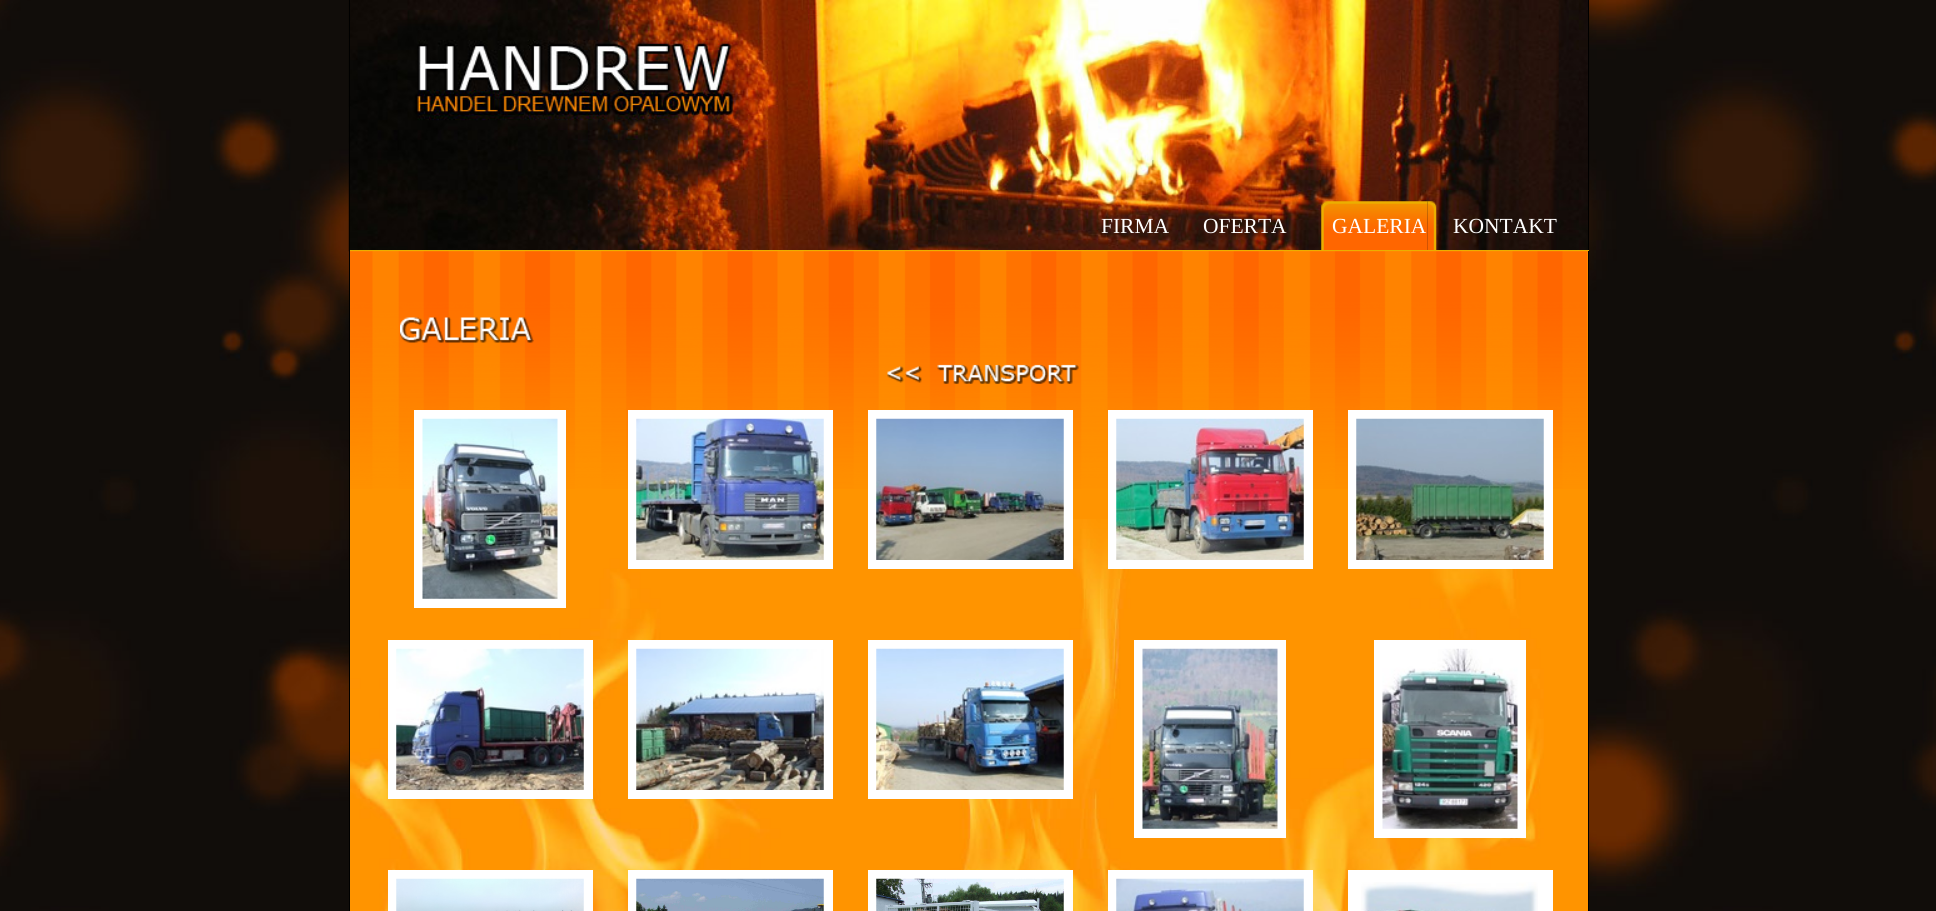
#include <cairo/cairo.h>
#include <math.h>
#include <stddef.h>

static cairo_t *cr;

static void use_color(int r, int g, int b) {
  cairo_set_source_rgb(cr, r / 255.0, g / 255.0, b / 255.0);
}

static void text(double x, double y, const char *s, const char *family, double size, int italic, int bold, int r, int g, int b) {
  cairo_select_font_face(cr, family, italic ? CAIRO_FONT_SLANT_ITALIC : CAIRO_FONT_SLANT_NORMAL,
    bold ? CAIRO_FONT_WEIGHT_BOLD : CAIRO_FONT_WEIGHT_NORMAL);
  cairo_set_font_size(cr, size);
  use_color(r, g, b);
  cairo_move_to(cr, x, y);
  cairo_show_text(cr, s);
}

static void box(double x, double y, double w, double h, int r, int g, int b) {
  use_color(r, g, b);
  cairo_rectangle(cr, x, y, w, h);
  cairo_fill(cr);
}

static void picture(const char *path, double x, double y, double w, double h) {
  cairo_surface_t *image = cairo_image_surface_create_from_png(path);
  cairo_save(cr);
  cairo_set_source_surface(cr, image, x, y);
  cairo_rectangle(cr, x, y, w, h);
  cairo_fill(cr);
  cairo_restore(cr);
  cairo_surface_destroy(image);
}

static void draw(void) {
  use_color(255, 255, 255);
  cairo_paint(cr);
  picture("img_01.png", 0, 0, 1936, 911);
  picture("img_02.png", 348, 0, 1240, 252);
  box(1588, 0, 1, 911, 0, 0, 0);
  box(349, 250, 1240, 1, 235, 175, 0);
  box(349, 0, 1, 911, 0, 0, 0);
  picture("img_03.png", 1321, 201, 107, 49);
  box(350, 251, 1238, 660, 255, 148, 0);
  picture("img_05.png", 350, 519, 1194, 392);
  picture("img_06.png", 350, 251, 1238, 238);
  picture("img_07.png", 400, 317, 134, 26);
  picture("img_08.png", 887, 366, 35, 17);
  picture("img_09.png", 937, 364, 142, 20);
  box(414, 410, 152, 198, 255, 255, 255);
  picture("img_10.png", 422, 418, 136, 181);
  box(628, 410, 205, 159, 255, 255, 255);
  picture("img_11.png", 636, 418, 188, 142);
  box(868, 410, 205, 159, 255, 255, 255);
  picture("img_12.png", 876, 418, 188, 142);
  box(1108, 410, 205, 159, 255, 255, 255);
  picture("img_13.png", 1116, 418, 188, 142);
  box(1348, 410, 205, 159, 255, 255, 255);
  picture("img_14.png", 1356, 418, 188, 142);
  box(388, 640, 205, 159, 255, 255, 255);
  picture("img_15.png", 396, 648, 188, 142);
  box(628, 640, 205, 159, 255, 255, 255);
  picture("img_16.png", 636, 648, 188, 142);
  box(868, 640, 205, 159, 255, 255, 255);
  picture("img_17.png", 876, 648, 188, 142);
  box(1134, 640, 152, 198, 255, 255, 255);
  picture("img_18.png", 1142, 648, 136, 181);
  box(1374, 640, 152, 198, 255, 255, 255);
  picture("img_19.png", 1382, 648, 136, 181);
  box(388, 870, 205, 41, 255, 255, 255);
  picture("img_20.png", 396, 878, 188, 33);
  box(628, 870, 205, 41, 255, 255, 255);
  picture("img_21.png", 636, 878, 188, 33);
  box(868, 870, 205, 41, 255, 255, 255);
  picture("img_22.png", 876, 878, 188, 33);
  box(1108, 870, 205, 41, 255, 255, 255);
  picture("img_23.png", 1116, 878, 188, 33);
  box(1348, 870, 205, 41, 255, 255, 255);
  picture("img_24.png", 1361, 882, 177, 29);
  text(1101, 233, "FIRMA", "Liberation Serif", 21.5, 0, 0, 255, 255, 255);
  text(1203, 233, "OFERTA", "Liberation Serif", 21.5, 0, 0, 255, 255, 255);
  text(1332, 233, "GALERIA", "Liberation Serif", 21.5, 0, 0, 255, 255, 255);
  picture("img_04.png", 1427, 201, 10, 49);
  text(1453, 233, "KONTAKT", "Liberation Serif", 21.5, 0, 0, 255, 255, 255);
}

int main(void) {
  cairo_surface_t *surface = cairo_image_surface_create(CAIRO_FORMAT_RGB24, 1936, 911);
  cr = cairo_create(surface);
  cairo_font_options_t *options = cairo_font_options_create();
  cairo_font_options_set_hint_metrics(options, CAIRO_HINT_METRICS_OFF);
  cairo_font_options_set_hint_style(options, CAIRO_HINT_STYLE_NONE);
  cairo_set_font_options(cr, options);
  cairo_set_miter_limit(cr, 4);
  draw();
  cairo_surface_write_to_png(surface, "out.png");
  cairo_font_options_destroy(options);
  cairo_destroy(cr);
  cairo_surface_destroy(surface);
  return 0;
}
